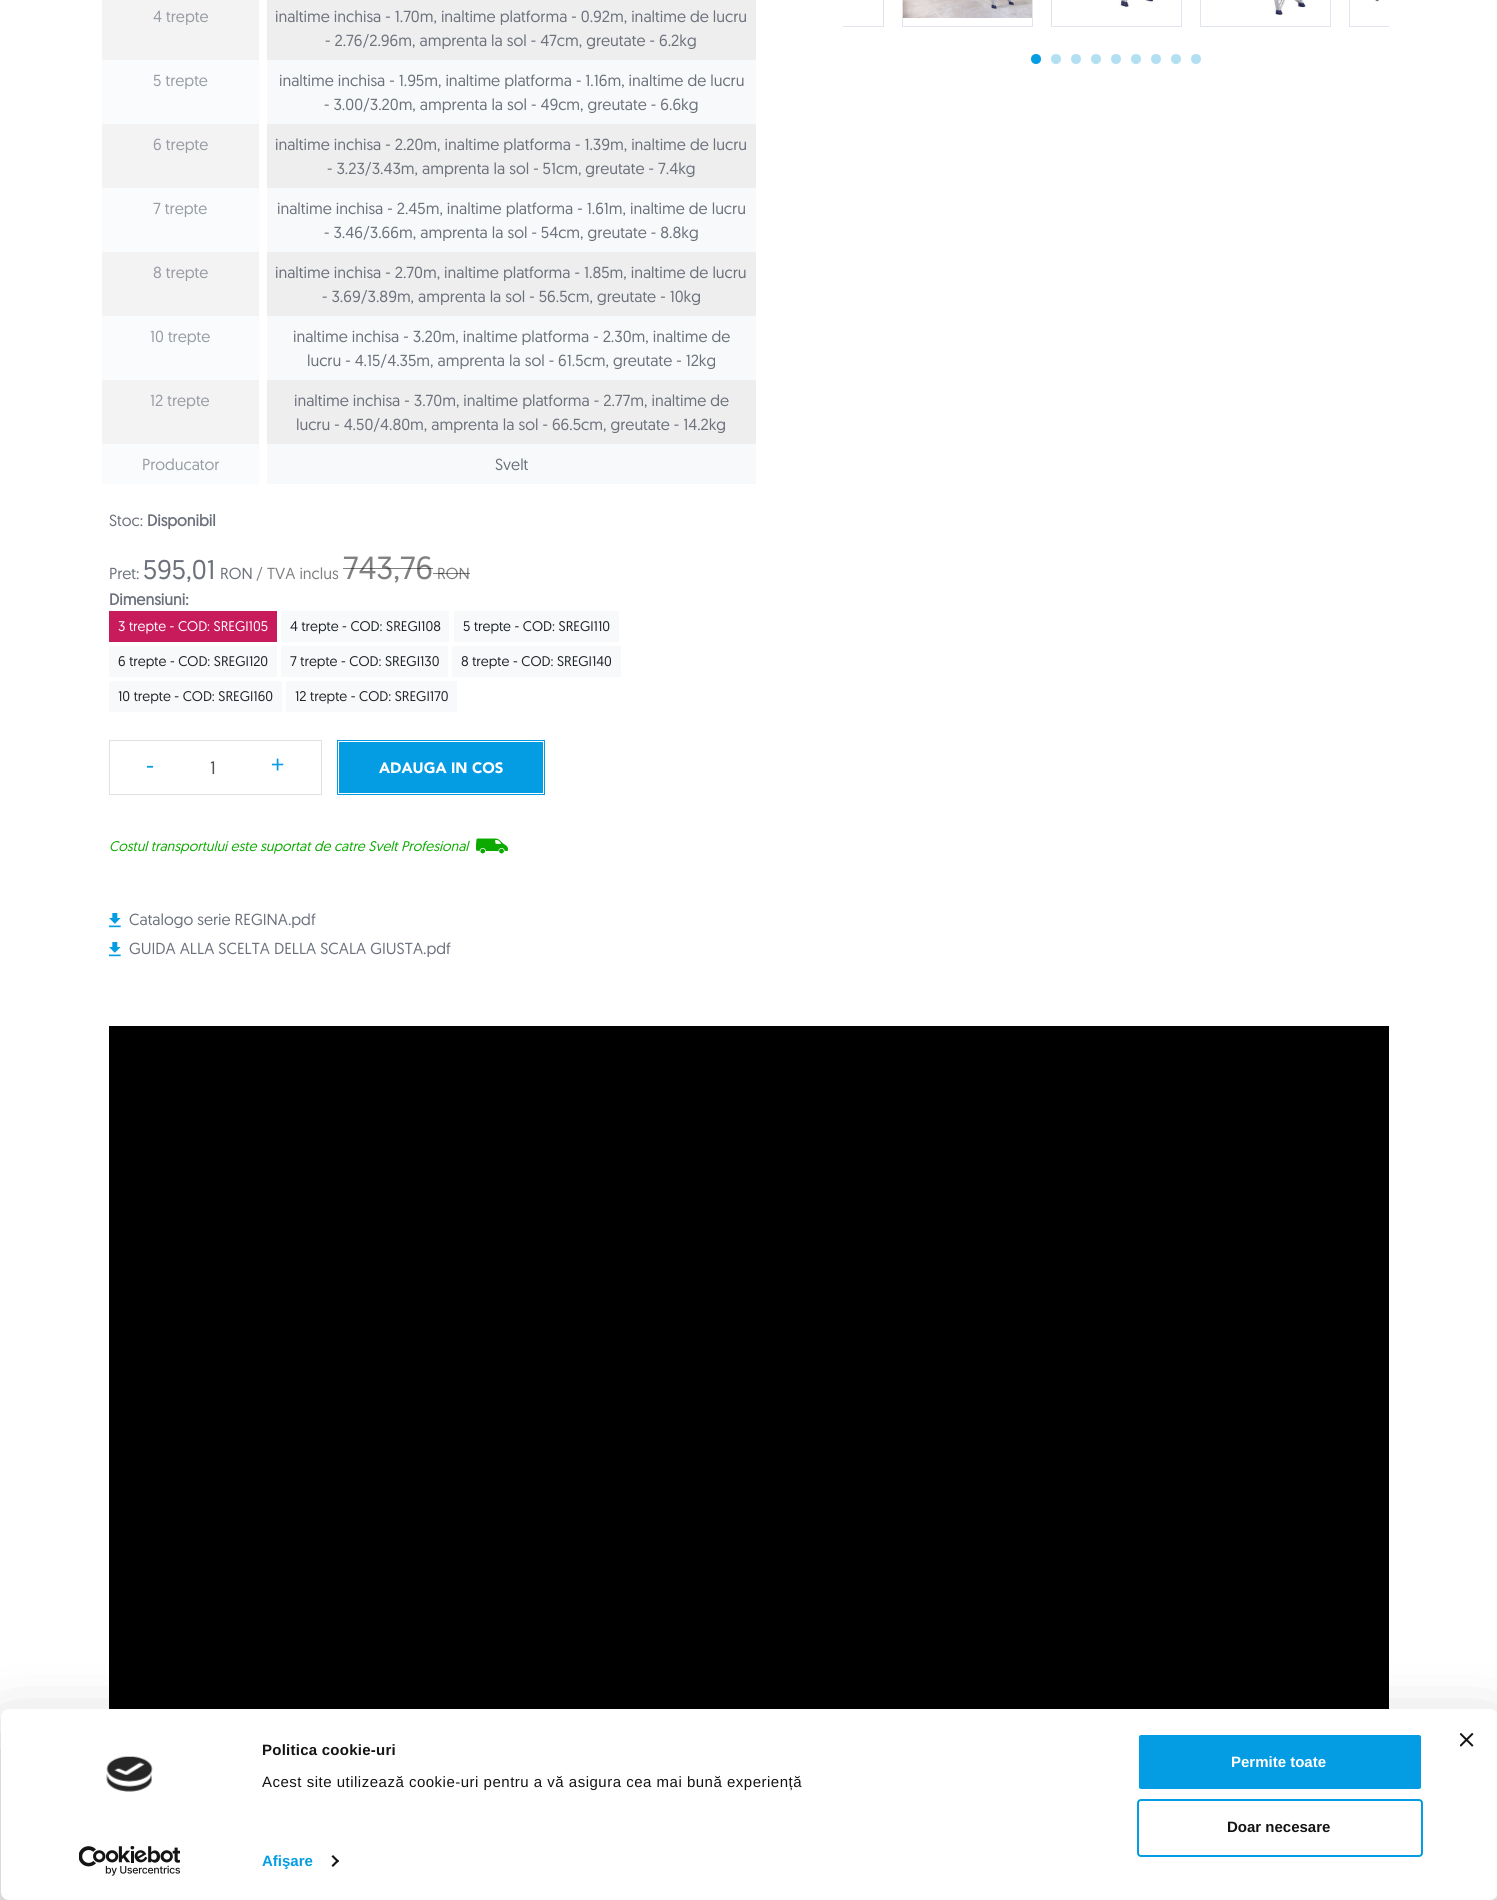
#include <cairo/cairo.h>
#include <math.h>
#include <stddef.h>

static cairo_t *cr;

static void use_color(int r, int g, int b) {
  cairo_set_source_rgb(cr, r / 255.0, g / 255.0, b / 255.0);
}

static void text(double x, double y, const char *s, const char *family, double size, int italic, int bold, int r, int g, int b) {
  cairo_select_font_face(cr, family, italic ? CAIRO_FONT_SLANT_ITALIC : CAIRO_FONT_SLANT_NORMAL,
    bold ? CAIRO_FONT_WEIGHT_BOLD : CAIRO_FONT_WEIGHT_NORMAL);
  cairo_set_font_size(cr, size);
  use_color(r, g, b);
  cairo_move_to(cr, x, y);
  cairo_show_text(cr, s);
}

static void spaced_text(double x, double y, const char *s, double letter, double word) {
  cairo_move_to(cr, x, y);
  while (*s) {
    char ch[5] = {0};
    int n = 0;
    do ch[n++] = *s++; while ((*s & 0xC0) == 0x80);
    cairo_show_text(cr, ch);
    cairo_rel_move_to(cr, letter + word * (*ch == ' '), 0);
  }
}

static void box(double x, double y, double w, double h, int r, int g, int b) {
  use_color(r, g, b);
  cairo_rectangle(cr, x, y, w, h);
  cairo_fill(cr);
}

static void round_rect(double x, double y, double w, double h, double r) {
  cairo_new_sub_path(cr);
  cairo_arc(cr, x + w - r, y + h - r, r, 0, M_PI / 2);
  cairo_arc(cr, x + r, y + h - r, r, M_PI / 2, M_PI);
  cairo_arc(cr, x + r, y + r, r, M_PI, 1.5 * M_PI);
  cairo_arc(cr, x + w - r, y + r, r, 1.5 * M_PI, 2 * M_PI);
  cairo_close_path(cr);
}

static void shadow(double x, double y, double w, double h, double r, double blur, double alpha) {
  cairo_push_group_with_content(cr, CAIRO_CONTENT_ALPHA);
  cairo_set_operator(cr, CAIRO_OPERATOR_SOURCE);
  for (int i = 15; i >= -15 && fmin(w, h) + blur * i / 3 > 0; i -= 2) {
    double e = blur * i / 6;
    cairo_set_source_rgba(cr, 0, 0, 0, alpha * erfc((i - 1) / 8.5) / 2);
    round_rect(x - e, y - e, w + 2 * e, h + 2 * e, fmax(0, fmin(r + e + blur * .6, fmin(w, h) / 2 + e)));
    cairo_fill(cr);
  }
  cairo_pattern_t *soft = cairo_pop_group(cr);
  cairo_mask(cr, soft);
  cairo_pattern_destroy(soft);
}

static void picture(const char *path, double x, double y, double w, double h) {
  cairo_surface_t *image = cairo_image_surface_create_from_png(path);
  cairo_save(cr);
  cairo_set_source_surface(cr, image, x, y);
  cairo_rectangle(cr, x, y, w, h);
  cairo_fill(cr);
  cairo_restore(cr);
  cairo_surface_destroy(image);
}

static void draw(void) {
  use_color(255, 255, 255);
  cairo_paint(cr);
  box(102, 0, 157, 60, 243, 243, 243);
  cairo_save(cr);
  cairo_rectangle(cr, 843, 0, 50, 36);
  cairo_clip(cr);
  cairo_rectangle(cr, 753.5, -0.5, 130, 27);
  use_color(223, 228, 239);
  cairo_set_line_width(cr, 1);
  cairo_stroke(cr);
  cairo_restore(cr);
  box(267, 0, 489, 60, 238, 238, 238);
  box(102, 60, 157, 64, 250, 251, 252);
  box(267, 60, 489, 64, 248, 249, 250);
  box(102, 124, 157, 64, 243, 243, 243);
  box(267, 124, 489, 64, 238, 238, 238);
  box(102, 188, 157, 64, 250, 251, 252);
  box(267, 188, 489, 64, 248, 249, 250);
  box(102, 252, 157, 64, 243, 243, 243);
  box(267, 252, 489, 64, 238, 238, 238);
  box(102, 316, 157, 64, 250, 251, 252);
  box(267, 316, 489, 64, 248, 249, 250);
  box(102, 380, 157, 64, 243, 243, 243);
  box(267, 380, 489, 64, 238, 238, 238);
  box(102, 444, 157, 40, 250, 251, 252);
  box(267, 444, 489, 40, 248, 249, 250);
  box(109, 611, 168, 31, 200, 27, 92);
  box(281, 611, 168, 31, 248, 249, 250);
  box(454, 611, 165, 31, 248, 249, 250);
  box(109, 646, 168, 31, 248, 249, 250);
  box(281, 646, 167, 31, 248, 249, 250);
  box(452, 646, 169, 31, 248, 249, 250);
  box(109, 681, 173, 31, 248, 249, 250);
  box(286, 681, 171, 31, 248, 249, 250);
  cairo_rectangle(cr, 109.5, 740.5, 212, 54);
  use_color(222, 226, 230);
  cairo_set_line_width(cr, 1);
  cairo_stroke(cr);
  box(339, 742, 204, 51, 4, 157, 228);
  cairo_rectangle(cr, 337.5, 740.5, 207, 54);
  cairo_stroke(cr);
  picture("img_01.png", 476, 838, 32, 16);
  cairo_rectangle(cr, 902.5, -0.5, 130, 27);
  use_color(223, 228, 239);
  cairo_stroke(cr);
  picture("img_02.png", 903, 0, 129, 18);
  cairo_rectangle(cr, 1051.5, -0.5, 130, 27);
  cairo_stroke(cr);
  picture("img_03.png", 1118, 0, 36, 9);
  cairo_rectangle(cr, 1200.5, -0.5, 130, 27);
  cairo_stroke(cr);
  picture("img_04.png", 1273, 0, 33, 16);
  cairo_save(cr);
  cairo_rectangle(cr, 1340, 0, 49, 36);
  cairo_clip(cr);
  cairo_rectangle(cr, 1349.5, -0.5, 130, 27);
  cairo_stroke(cr);
  cairo_restore(cr);
  picture("img_05.png", 1374, 0, 6, 3);
  use_color(4, 157, 228);
  cairo_arc(cr, 1036, 59, 5, 0, 2 * M_PI);
  cairo_fill(cr);
  use_color(179, 223, 243);
  cairo_arc(cr, 1056, 59, 5, 0, 2 * M_PI);
  cairo_fill(cr);
  cairo_arc(cr, 1076, 59, 5, 0, 2 * M_PI);
  cairo_fill(cr);
  cairo_arc(cr, 1096, 59, 5, 0, 2 * M_PI);
  cairo_fill(cr);
  cairo_arc(cr, 1116, 59, 5, 0, 2 * M_PI);
  cairo_fill(cr);
  cairo_arc(cr, 1136, 59, 5, 0, 2 * M_PI);
  cairo_fill(cr);
  cairo_arc(cr, 1156, 59, 5, 0, 2 * M_PI);
  cairo_fill(cr);
  cairo_arc(cr, 1176, 59, 5, 0, 2 * M_PI);
  cairo_fill(cr);
  cairo_arc(cr, 1196, 59, 5, 0, 2 * M_PI);
  cairo_fill(cr);
  picture("img_06.png", 109, 913, 12, 15);
  picture("img_06.png", 109, 942, 12, 15);
  box(109, 1026, 1280, 683, 0, 0, 0);
  use_color(0, 0, 0);
  shadow(1, 1739, 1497, 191, 8, 35, 0.3);
  use_color(255, 255, 255);
  round_rect(1, 1709, 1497, 191, 8);
  cairo_fill(cr);
  picture("img_07.png", 1460, 1733, 14, 14);
  picture("img_08.png", 106, 1756, 47, 36);
  picture("img_09.png", 79, 1846, 101, 30);
  use_color(20, 20, 20);
  cairo_new_path(cr);
  cairo_move_to(cr, 333, 1855);
  cairo_line_to(cr, 339, 1861);
  cairo_line_to(cr, 337.5, 1862.5);
  cairo_line_to(cr, 331.5, 1856.5);
  cairo_close_path(cr);
  cairo_fill(cr);
  cairo_new_path(cr);
  cairo_move_to(cr, 337.5, 1859.5);
  cairo_line_to(cr, 339, 1861);
  cairo_line_to(cr, 333, 1867);
  cairo_line_to(cr, 331.5, 1865.5);
  cairo_close_path(cr);
  cairo_fill(cr);
  use_color(4, 157, 228);
  round_rect(1138, 1734, 284, 56, 3);
  cairo_fill_preserve(cr);
  use_color(255, 255, 255);
  cairo_set_line_width(cr, 2);
  cairo_stroke(cr);
  round_rect(1138, 1800, 284, 56, 3);
  use_color(4, 157, 228);
  cairo_stroke(cr);
  text(153, 22, "4 trepte", "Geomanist", 16, 0, 0, 152, 156, 163);
  text(275, 22, "inaltime inchisa - 1.70m, inaltime platforma - 0.92m, inaltime de lucru", "Geomanist", 16, 0, 0, 108, 113, 124);
  text(325, 46, "- 2.76/2.96m, amprenta la sol - 47cm, greutate - 6.2kg", "Geomanist", 16, 0, 0, 108, 113, 124);
  text(153, 86, "5 trepte", "Geomanist", 16, 0, 0, 152, 156, 163);
  text(279, 86, "inaltime inchisa - 1.95m, inaltime platforma - 1.16m, inaltime de lucru", "Geomanist", 16, 0, 0, 108, 113, 124);
  text(324, 110, "- 3.00/3.20m, amprenta la sol - 49cm, greutate - 6.6kg", "Geomanist", 16, 0, 0, 108, 113, 124);
  text(153, 150, "6 trepte", "Geomanist", 16, 0, 0, 152, 156, 163);
  text(275, 150, "inaltime inchisa - 2.20m, inaltime platforma - 1.39m, inaltime de lucru", "Geomanist", 16, 0, 0, 108, 113, 124);
  text(327, 174, "- 3.23/3.43m, amprenta la sol - 51cm, greutate - 7.4kg", "Geomanist", 16, 0, 0, 108, 113, 124);
  text(153, 214, "7 trepte", "Geomanist", 16, 0, 0, 152, 156, 163);
  text(277, 214, "inaltime inchisa - 2.45m, inaltime platforma - 1.61m, inaltime de lucru", "Geomanist", 16, 0, 0, 108, 113, 124);
  text(324, 238, "- 3.46/3.66m, amprenta la sol - 54cm, greutate - 8.8kg", "Geomanist", 16, 0, 0, 108, 113, 124);
  text(153, 278, "8 trepte", "Geomanist", 16, 0, 0, 152, 156, 163);
  text(275, 278, "inaltime inchisa - 2.70m, inaltime platforma - 1.85m, inaltime de lucru", "Geomanist", 16, 0, 0, 108, 113, 124);
  text(322, 302, "- 3.69/3.89m, amprenta la sol - 56.5cm, greutate - 10kg", "Geomanist", 16, 0, 0, 108, 113, 124);
  text(150, 342, "10 trepte", "Geomanist", 16, 0, 0, 152, 156, 163);
  text(293, 342, "inaltime inchisa - 3.20m, inaltime platforma - 2.30m, inaltime de", "Geomanist", 16, 0, 0, 108, 113, 124);
  text(307, 366, "lucru - 4.15/4.35m, amprenta la sol - 61.5cm, greutate - 12kg", "Geomanist", 16, 0, 0, 108, 113, 124);
  text(150, 406, "12 trepte", "Geomanist", 16, 0, 0, 152, 156, 163);
  text(294, 406, "inaltime inchisa - 3.70m, inaltime platforma - 2.77m, inaltime de", "Geomanist", 16, 0, 0, 108, 113, 124);
  text(296, 430, "lucru - 4.50/4.80m, amprenta la sol - 66.5cm, greutate - 14.2kg", "Geomanist", 16, 0, 0, 108, 113, 124);
  text(142, 470, "Producator", "Geomanist", 16, 0, 0, 152, 156, 163);
  text(495, 470, "Svelt", "Geomanist", 16, 0, 0, 108, 113, 124);
  text(109, 526, "Stoc:", "Geomanist", 16, 0, 0, 108, 113, 124);
  text(147, 526, "Disponibil", "Geomanist", 16, 0, 1, 108, 113, 124);
  text(109, 579, "Pret:", "Geomanist", 16, 0, 0, 108, 113, 124);
  text(143, 579, "595,01", "Geomanist", 27, 0, 0, 108, 113, 124);
  text(220, 579, "RON", "Geomanist", 16, 0, 0, 108, 113, 124);
  text(256, 579, "/ TVA inclus", "Geomanist", 16, 0, 0, 128, 128, 128);
  text(343, 579, "743,76", "Geomanist", 32, 0, 0, 128, 128, 128);
  cairo_set_source_rgba(cr, 0, 0, 0, 0.5);
  cairo_rectangle(cr, 343, 568, 90, 1);
  cairo_fill(cr);
  text(437, 579, "RON", "Geomanist", 16, 0, 0, 128, 128, 128);
  cairo_set_source_rgba(cr, 0, 0, 0, 0.5);
  cairo_rectangle(cr, 433, 573, 37, 1);
  cairo_fill(cr);
  text(109, 605, "Dimensiuni:", "Geomanist", 16, 0, 1, 108, 113, 124);
  text(118, 631, "3 trepte - COD: SREGI105", "Geomanist", 14, 0, 0, 255, 255, 255);
  text(290, 631, "4 trepte - COD: SREGI108", "Geomanist", 14, 0, 0, 33, 37, 41);
  text(463, 631, "5 trepte - COD: SREGI110", "Geomanist", 14, 0, 0, 33, 37, 41);
  text(118, 666, "6 trepte - COD: SREGI120", "Geomanist", 14, 0, 0, 33, 37, 41);
  text(290, 666, "7 trepte - COD: SREGI130", "Geomanist", 14, 0, 0, 33, 37, 41);
  text(461, 666, "8 trepte - COD: SREGI140", "Geomanist", 14, 0, 0, 33, 37, 41);
  text(118, 701, "10 trepte - COD: SREGI160", "Geomanist", 14, 0, 0, 33, 37, 41);
  text(295, 701, "12 trepte - COD: SREGI170", "Geomanist", 14, 0, 0, 33, 37, 41);
  text(146, 774, "-", "Geomanist", 24, 0, 0, 4, 157, 228);
  text(210, 774, "1", "Geomanist", 18, 0, 0, 73, 80, 87);
  text(271, 772, "+", "Geomanist", 24, 0, 0, 4, 157, 228);
  text(379, 773, "ADAUGA IN COS", "Avenir Black", 15, 0, 0, 255, 255, 255);
  text(109, 851, "Costul transportului este suportat de catre Svelt Profesional", "Geomanist", 14, 1, 0, 12, 170, 0);
  text(129, 925, "Catalogo serie REGINA.pdf", "Geomanist", 16, 0, 0, 108, 113, 124);
  text(129, 954, "GUIDA ALLA SCELTA DELLA SCALA GIUSTA.pdf", "Geomanist", 16, 0, 0, 108, 113, 124);
  cairo_select_font_face(cr, "Liberation Sans", CAIRO_FONT_SLANT_NORMAL, CAIRO_FONT_WEIGHT_BOLD);
  cairo_set_font_size(cr, 15);
  use_color(20, 20, 20);
  spaced_text(262, 1755, "Politica cookie-uri", 0.25, 0);
  cairo_select_font_face(cr, "Liberation Sans", CAIRO_FONT_SLANT_NORMAL, CAIRO_FONT_WEIGHT_NORMAL);
  spaced_text(262, 1787, "Acest site utilizează cookie-uri pentru a vă asigura cea mai bună experiență", 0.5, 0);
  text(262, 1866, "Afişare", "Liberation Sans", 15, 0, 1, 4, 157, 228);
  text(1231, 1767, "Permite toate", "Liberation Sans", 15, 0, 1, 255, 255, 255);
  text(1227, 1832, "Doar necesare", "Liberation Sans", 15, 0, 1, 20, 20, 20);
}

int main(void) {
  cairo_surface_t *surface = cairo_image_surface_create(CAIRO_FORMAT_RGB24, 1497, 1900);
  cr = cairo_create(surface);
  cairo_font_options_t *options = cairo_font_options_create();
  cairo_font_options_set_hint_metrics(options, CAIRO_HINT_METRICS_OFF);
  cairo_font_options_set_hint_style(options, CAIRO_HINT_STYLE_NONE);
  cairo_set_font_options(cr, options);
  cairo_set_miter_limit(cr, 4);
  draw();
  cairo_surface_write_to_png(surface, "out.png");
  cairo_font_options_destroy(options);
  cairo_destroy(cr);
  cairo_surface_destroy(surface);
  return 0;
}
